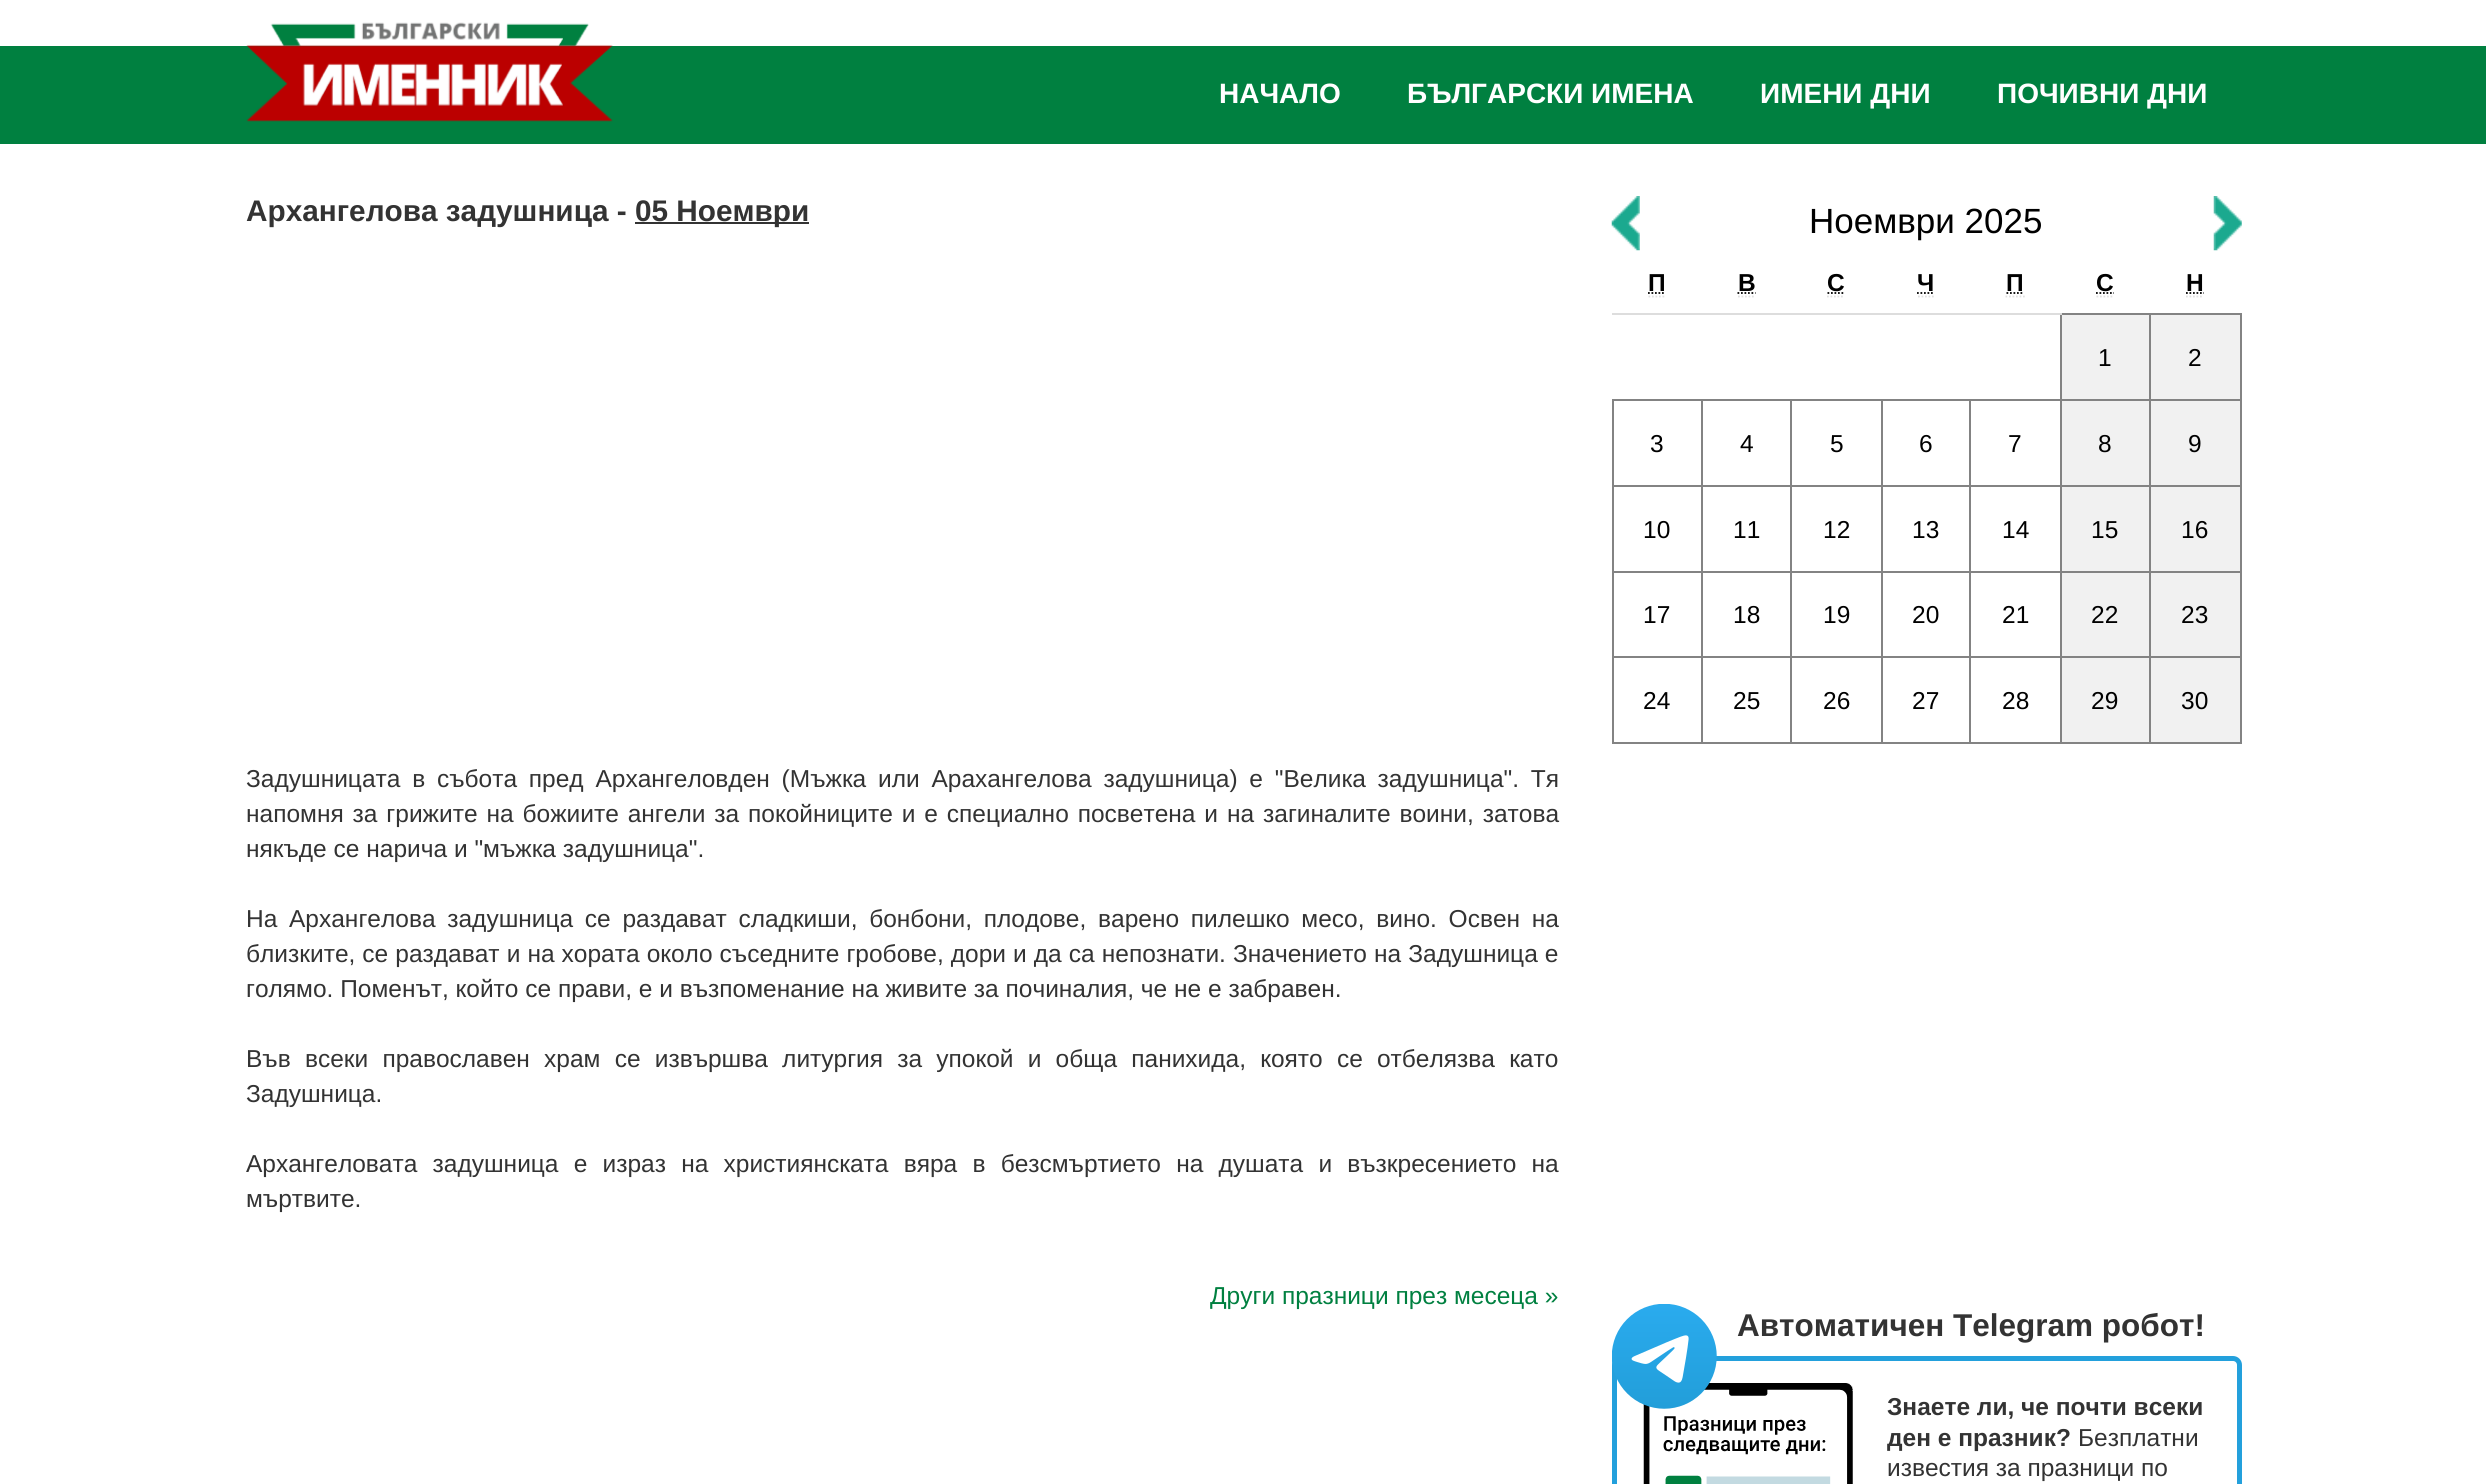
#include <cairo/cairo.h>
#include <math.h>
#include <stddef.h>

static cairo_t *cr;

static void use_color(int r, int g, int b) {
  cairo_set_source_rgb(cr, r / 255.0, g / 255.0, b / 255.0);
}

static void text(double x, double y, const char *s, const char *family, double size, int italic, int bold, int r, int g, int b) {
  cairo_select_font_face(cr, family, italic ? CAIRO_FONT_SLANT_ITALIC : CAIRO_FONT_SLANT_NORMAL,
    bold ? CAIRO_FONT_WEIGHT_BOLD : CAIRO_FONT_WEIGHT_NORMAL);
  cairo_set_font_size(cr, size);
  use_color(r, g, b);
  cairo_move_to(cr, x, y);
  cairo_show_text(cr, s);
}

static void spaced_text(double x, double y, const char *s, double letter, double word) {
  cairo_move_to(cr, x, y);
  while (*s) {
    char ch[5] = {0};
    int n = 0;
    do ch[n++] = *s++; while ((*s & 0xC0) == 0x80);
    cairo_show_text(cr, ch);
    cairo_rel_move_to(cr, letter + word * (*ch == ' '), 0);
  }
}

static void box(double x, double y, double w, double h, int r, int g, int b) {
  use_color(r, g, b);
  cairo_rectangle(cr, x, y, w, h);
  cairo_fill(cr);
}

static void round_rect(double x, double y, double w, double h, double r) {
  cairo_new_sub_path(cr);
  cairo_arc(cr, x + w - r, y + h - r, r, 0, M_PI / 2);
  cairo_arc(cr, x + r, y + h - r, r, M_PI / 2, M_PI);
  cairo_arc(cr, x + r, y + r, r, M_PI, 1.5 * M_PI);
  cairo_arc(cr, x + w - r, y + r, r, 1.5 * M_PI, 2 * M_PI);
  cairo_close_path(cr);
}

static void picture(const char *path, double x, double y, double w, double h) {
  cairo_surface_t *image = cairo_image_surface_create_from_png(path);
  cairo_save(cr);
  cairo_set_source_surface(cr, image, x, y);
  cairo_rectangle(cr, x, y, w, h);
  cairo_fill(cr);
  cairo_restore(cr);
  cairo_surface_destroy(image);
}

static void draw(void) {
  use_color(255, 255, 255);
  cairo_paint(cr);
  box(0, 46, 2486, 98, 0, 128, 64);
  picture("img_01.png", 246, 22, 367, 100);
  box(635, 222, 174, 2, 51, 51, 51);
  picture("img_02.png", 1611, 196, 29, 55);
  picture("img_03.png", 2213, 196, 29, 55);
  cairo_new_path(cr);
  cairo_move_to(cr, 1648.5, 296.5);
  cairo_line_to(cr, 1666, 296.5);
  use_color(225, 225, 225);
  cairo_set_line_width(cr, 1.8);
  cairo_set_dash(cr, (double[]){1.75, 1.75}, 2, 0);
  cairo_stroke(cr);
  cairo_new_path(cr);
  cairo_move_to(cr, 1648, 293);
  cairo_line_to(cr, 1665.5, 293);
  use_color(0, 0, 0);
  cairo_stroke(cr);
  cairo_new_path(cr);
  cairo_move_to(cr, 1738, 296.5);
  cairo_line_to(cr, 1755, 296.5);
  use_color(225, 225, 225);
  cairo_stroke(cr);
  cairo_new_path(cr);
  cairo_move_to(cr, 1737.5, 293);
  cairo_line_to(cr, 1755.5, 293);
  use_color(0, 0, 0);
  cairo_stroke(cr);
  cairo_new_path(cr);
  cairo_move_to(cr, 1827, 296.5);
  cairo_line_to(cr, 1844.5, 296.5);
  use_color(225, 225, 225);
  cairo_stroke(cr);
  cairo_new_path(cr);
  cairo_move_to(cr, 1827.5, 293);
  cairo_line_to(cr, 1845, 293);
  use_color(0, 0, 0);
  cairo_stroke(cr);
  cairo_new_path(cr);
  cairo_move_to(cr, 1918, 296.5);
  cairo_line_to(cr, 1934, 296.5);
  use_color(225, 225, 225);
  cairo_stroke(cr);
  cairo_new_path(cr);
  cairo_move_to(cr, 1917, 293);
  cairo_line_to(cr, 1934.5, 293);
  use_color(0, 0, 0);
  cairo_stroke(cr);
  cairo_new_path(cr);
  cairo_move_to(cr, 2005.5, 296.5);
  cairo_line_to(cr, 2025, 296.5);
  use_color(225, 225, 225);
  cairo_stroke(cr);
  cairo_new_path(cr);
  cairo_move_to(cr, 2006.5, 293);
  cairo_line_to(cr, 2024, 293);
  use_color(0, 0, 0);
  cairo_stroke(cr);
  cairo_new_path(cr);
  cairo_move_to(cr, 2096.5, 296.5);
  cairo_line_to(cr, 2114, 296.5);
  use_color(225, 225, 225);
  cairo_stroke(cr);
  cairo_new_path(cr);
  cairo_move_to(cr, 2096, 293);
  cairo_line_to(cr, 2114, 293);
  use_color(0, 0, 0);
  cairo_stroke(cr);
  cairo_new_path(cr);
  cairo_move_to(cr, 2186, 296.5);
  cairo_line_to(cr, 2203, 296.5);
  use_color(225, 225, 225);
  cairo_stroke(cr);
  cairo_new_path(cr);
  cairo_move_to(cr, 2186, 293);
  cairo_line_to(cr, 2204, 293);
  use_color(0, 0, 0);
  cairo_stroke(cr);
  box(2149, 313, 93, 2, 131, 131, 131);
  box(2149, 399, 93, 2, 131, 131, 131);
  box(2149, 485, 93, 2, 131, 131, 131);
  box(2149, 571, 93, 2, 131, 131, 131);
  box(2149, 656, 93, 2, 131, 131, 131);
  box(2240, 656, 2, 88, 131, 131, 131);
  box(2149, 742, 93, 2, 131, 131, 131);
  box(2149, 656, 2, 88, 131, 131, 131);
  box(2060, 656, 91, 2, 131, 131, 131);
  box(2149, 571, 2, 87, 131, 131, 131);
  box(2060, 571, 91, 2, 131, 131, 131);
  box(2149, 485, 2, 87, 131, 131, 131);
  box(2060, 485, 91, 2, 131, 131, 131);
  box(2149, 399, 2, 88, 131, 131, 131);
  box(2060, 399, 91, 2, 131, 131, 131);
  box(2149, 313, 2, 88, 131, 131, 131);
  box(2060, 313, 91, 2, 131, 131, 131);
  box(2060, 742, 91, 2, 131, 131, 131);
  box(2060, 656, 2, 88, 131, 131, 131);
  box(1969, 656, 93, 2, 131, 131, 131);
  box(2060, 571, 2, 87, 131, 131, 131);
  box(1969, 571, 93, 2, 131, 131, 131);
  box(2060, 485, 2, 87, 131, 131, 131);
  box(1969, 485, 93, 2, 131, 131, 131);
  box(2060, 399, 2, 88, 131, 131, 131);
  box(1969, 399, 93, 2, 131, 131, 131);
  box(2060, 313, 2, 88, 131, 131, 131);
  box(1612, 313, 450, 2, 221, 221, 221);
  box(2062, 315, 87, 84, 241, 241, 241);
  box(2151, 315, 89, 84, 241, 241, 241);
  box(2240, 571, 2, 87, 131, 131, 131);
  box(2240, 485, 2, 87, 131, 131, 131);
  box(2240, 399, 2, 88, 131, 131, 131);
  box(2240, 313, 2, 88, 131, 131, 131);
  box(1969, 742, 93, 2, 131, 131, 131);
  box(1969, 656, 2, 88, 131, 131, 131);
  box(1881, 656, 90, 2, 131, 131, 131);
  box(1969, 571, 2, 87, 131, 131, 131);
  box(1881, 571, 90, 2, 131, 131, 131);
  box(1969, 485, 2, 87, 131, 131, 131);
  box(1881, 485, 90, 2, 131, 131, 131);
  box(1969, 399, 2, 88, 131, 131, 131);
  box(1881, 399, 90, 2, 131, 131, 131);
  box(1881, 742, 90, 2, 131, 131, 131);
  box(1881, 656, 2, 88, 131, 131, 131);
  box(1790, 656, 93, 2, 131, 131, 131);
  box(1881, 571, 2, 87, 131, 131, 131);
  box(1790, 571, 93, 2, 131, 131, 131);
  box(1881, 485, 2, 87, 131, 131, 131);
  box(1790, 485, 93, 2, 131, 131, 131);
  box(1881, 399, 2, 88, 131, 131, 131);
  box(1790, 399, 93, 2, 131, 131, 131);
  box(1790, 742, 93, 2, 131, 131, 131);
  box(1790, 656, 2, 88, 131, 131, 131);
  box(1701, 656, 91, 2, 131, 131, 131);
  box(1790, 571, 2, 87, 131, 131, 131);
  box(1701, 571, 91, 2, 131, 131, 131);
  box(1790, 485, 2, 87, 131, 131, 131);
  box(1701, 485, 91, 2, 131, 131, 131);
  box(1790, 399, 2, 88, 131, 131, 131);
  box(1701, 399, 91, 2, 131, 131, 131);
  box(1701, 742, 91, 2, 131, 131, 131);
  box(1701, 656, 2, 88, 131, 131, 131);
  box(1612, 656, 91, 2, 131, 131, 131);
  box(1701, 571, 2, 87, 131, 131, 131);
  box(1612, 571, 91, 2, 131, 131, 131);
  box(1701, 485, 2, 87, 131, 131, 131);
  box(1612, 485, 91, 2, 131, 131, 131);
  box(1701, 399, 2, 88, 131, 131, 131);
  box(1612, 399, 91, 2, 131, 131, 131);
  box(1612, 742, 91, 2, 131, 131, 131);
  box(1612, 656, 2, 88, 131, 131, 131);
  box(1612, 571, 2, 87, 131, 131, 131);
  box(1612, 485, 2, 87, 131, 131, 131);
  box(1612, 399, 2, 88, 131, 131, 131);
  box(2062, 401, 87, 84, 241, 241, 241);
  box(2151, 401, 89, 84, 241, 241, 241);
  box(2062, 487, 87, 84, 241, 241, 241);
  box(2151, 487, 89, 84, 241, 241, 241);
  box(2062, 573, 87, 83, 241, 241, 241);
  box(2151, 573, 89, 83, 241, 241, 241);
  box(2062, 658, 87, 84, 241, 241, 241);
  box(2151, 658, 89, 84, 241, 241, 241);
  round_rect(1614.5, 1358.5, 625, 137, 6.5);
  use_color(35, 160, 220);
  cairo_set_line_width(cr, 5);
  cairo_set_dash(cr, NULL, 0, 0);
  cairo_stroke(cr);
  picture("img_05.png", 1643, 1383, 210, 101);
  picture("img_04.png", 1612, 1304, 105, 105);
  text(1219, 103, "НАЧАЛО", "Liberation Sans", 28, 0, 1, 255, 255, 255);
  text(1407, 103, "БЪЛГАРСКИ ИМЕНА", "Liberation Sans", 28, 0, 1, 255, 255, 255);
  text(1760, 103, "ИМЕНИ ДНИ", "Liberation Sans", 28, 0, 1, 255, 255, 255);
  text(1997, 103, "ПОЧИВНИ ДНИ", "Liberation Sans", 28, 0, 1, 255, 255, 255);
  text(246, 221, "Архангелова задушница -", "Liberation Sans", 29.75, 0, 1, 51, 51, 51);
  text(635, 221, "05 Ноември", "Liberation Sans", 29.75, 0, 1, 51, 51, 51);
  cairo_select_font_face(cr, "Liberation Sans", CAIRO_FONT_SLANT_NORMAL, CAIRO_FONT_WEIGHT_NORMAL);
  cairo_set_font_size(cr, 24.5);
  spaced_text(246, 787, "Задушницата в събота пред Архангеловден (Мъжка или Арахангелова задушница) е \"Велика задушница\". Тя", 0, 5);
  spaced_text(246, 822, "напомня за грижите на божиите ангели за покойниците и е специално посветена и на загиналите воини, затова", 0, 2.1);
  text(246, 857, "някъде се нарича и \"мъжка задушница\".", "Liberation Sans", 24.5, 0, 0, 51, 51, 51);
  spaced_text(246, 927, "На Архангелова задушница се раздават сладкиши, бонбони, плодове, варено пилешко месо, вино. Освен на", 0, 4.9);
  spaced_text(246, 962, "близките, се раздават и на хората около съседните гробове, дори и да са непознати. Значението на Задушница е", 0, 0.25);
  text(246, 997, "голямо. Поменът, който се прави, е и възпоменание на живите за починалия, че не е забравен.", "Liberation Sans", 24.5, 0, 0, 51, 51, 51);
  spaced_text(246, 1067, "Във всеки православен храм се извършва литургия за упокой и обща панихида, която се отбелязва като", 0, 7.4);
  text(246, 1102, "Задушница.", "Liberation Sans", 24.5, 0, 0, 51, 51, 51);
  spaced_text(246, 1172, "Архангеловата задушница е израз на християнската вяра в безсмъртието на душата и възкресението на", 0, 8.4);
  text(246, 1207, "мъртвите.", "Liberation Sans", 24.5, 0, 0, 51, 51, 51);
  text(1210, 1304, "Други празници през месеца »", "Liberation Sans", 24.5, 0, 0, 0, 128, 64);
  text(1809, 233, "Ноември 2025", "Liberation Sans", 35, 0, 0, 0, 0, 0);
  text(1648, 291, "П", "Liberation Sans", 24.5, 0, 1, 0, 0, 0);
  text(1738, 291, "В", "Liberation Sans", 24.5, 0, 1, 0, 0, 0);
  text(1827, 291, "С", "Liberation Sans", 24.5, 0, 1, 0, 0, 0);
  text(1917, 291, "Ч", "Liberation Sans", 24.5, 0, 1, 0, 0, 0);
  text(2006, 291, "П", "Liberation Sans", 24.5, 0, 1, 0, 0, 0);
  text(2096, 291, "С", "Liberation Sans", 24.5, 0, 1, 0, 0, 0);
  text(2186, 291, "Н", "Liberation Sans", 24.5, 0, 1, 0, 0, 0);
  text(2098, 366, "1", "Liberation Sans", 24.5, 0, 0, 0, 0, 0);
  text(2188, 366, "2", "Liberation Sans", 24.5, 0, 0, 0, 0, 0);
  text(1650, 452, "3", "Liberation Sans", 24.5, 0, 0, 0, 0, 0);
  text(1740, 452, "4", "Liberation Sans", 24.5, 0, 0, 0, 0, 0);
  text(1830, 452, "5", "Liberation Sans", 24.5, 0, 0, 0, 0, 0);
  text(1919, 452, "6", "Liberation Sans", 24.5, 0, 0, 0, 0, 0);
  text(2008, 452, "7", "Liberation Sans", 24.5, 0, 0, 0, 0, 0);
  text(2098, 452, "8", "Liberation Sans", 24.5, 0, 0, 0, 0, 0);
  text(2188, 452, "9", "Liberation Sans", 24.5, 0, 0, 0, 0, 0);
  text(1643, 538, "10", "Liberation Sans", 24.5, 0, 0, 0, 0, 0);
  text(1733, 538, "11", "Liberation Sans", 24.5, 0, 0, 0, 0, 0);
  text(1823, 538, "12", "Liberation Sans", 24.5, 0, 0, 0, 0, 0);
  text(1912, 538, "13", "Liberation Sans", 24.5, 0, 0, 0, 0, 0);
  text(2002, 538, "14", "Liberation Sans", 24.5, 0, 0, 0, 0, 0);
  text(2091, 538, "15", "Liberation Sans", 24.5, 0, 0, 0, 0, 0);
  text(2181, 538, "16", "Liberation Sans", 24.5, 0, 0, 0, 0, 0);
  text(1643, 623, "17", "Liberation Sans", 24.5, 0, 0, 0, 0, 0);
  text(1733, 623, "18", "Liberation Sans", 24.5, 0, 0, 0, 0, 0);
  text(1823, 623, "19", "Liberation Sans", 24.5, 0, 0, 0, 0, 0);
  text(1912, 623, "20", "Liberation Sans", 24.5, 0, 0, 0, 0, 0);
  text(2002, 623, "21", "Liberation Sans", 24.5, 0, 0, 0, 0, 0);
  text(2091, 623, "22", "Liberation Sans", 24.5, 0, 0, 0, 0, 0);
  text(2181, 623, "23", "Liberation Sans", 24.5, 0, 0, 0, 0, 0);
  text(1643, 709, "24", "Liberation Sans", 24.5, 0, 0, 0, 0, 0);
  text(1733, 709, "25", "Liberation Sans", 24.5, 0, 0, 0, 0, 0);
  text(1823, 709, "26", "Liberation Sans", 24.5, 0, 0, 0, 0, 0);
  text(1912, 709, "27", "Liberation Sans", 24.5, 0, 0, 0, 0, 0);
  text(2002, 709, "28", "Liberation Sans", 24.5, 0, 0, 0, 0, 0);
  text(2091, 709, "29", "Liberation Sans", 24.5, 0, 0, 0, 0, 0);
  text(2181, 709, "30", "Liberation Sans", 24.5, 0, 0, 0, 0, 0);
  text(1737, 1336, "Автоматичен Telegram робот!", "Liberation Sans", 31.5, 0, 1, 51, 51, 51);
  text(1887, 1415, "Знаете ли, че почти всеки", "Liberation Sans", 24.5, 0, 1, 51, 51, 51);
  text(1887, 1446, "ден е празник?", "Liberation Sans", 24.5, 0, 1, 51, 51, 51);
  text(2078, 1446, "Безплатни", "Liberation Sans", 24.5, 0, 0, 51, 51, 51);
  text(1887, 1476, "известия за празници по", "Liberation Sans", 24.5, 0, 0, 51, 51, 51);
}

int main(void) {
  cairo_surface_t *surface = cairo_image_surface_create(CAIRO_FORMAT_RGB24, 2486, 1484);
  cr = cairo_create(surface);
  cairo_font_options_t *options = cairo_font_options_create();
  cairo_font_options_set_hint_metrics(options, CAIRO_HINT_METRICS_OFF);
  cairo_font_options_set_hint_style(options, CAIRO_HINT_STYLE_NONE);
  cairo_set_font_options(cr, options);
  cairo_set_miter_limit(cr, 4);
  draw();
  cairo_surface_write_to_png(surface, "out.png");
  cairo_font_options_destroy(options);
  cairo_destroy(cr);
  cairo_surface_destroy(surface);
  return 0;
}
